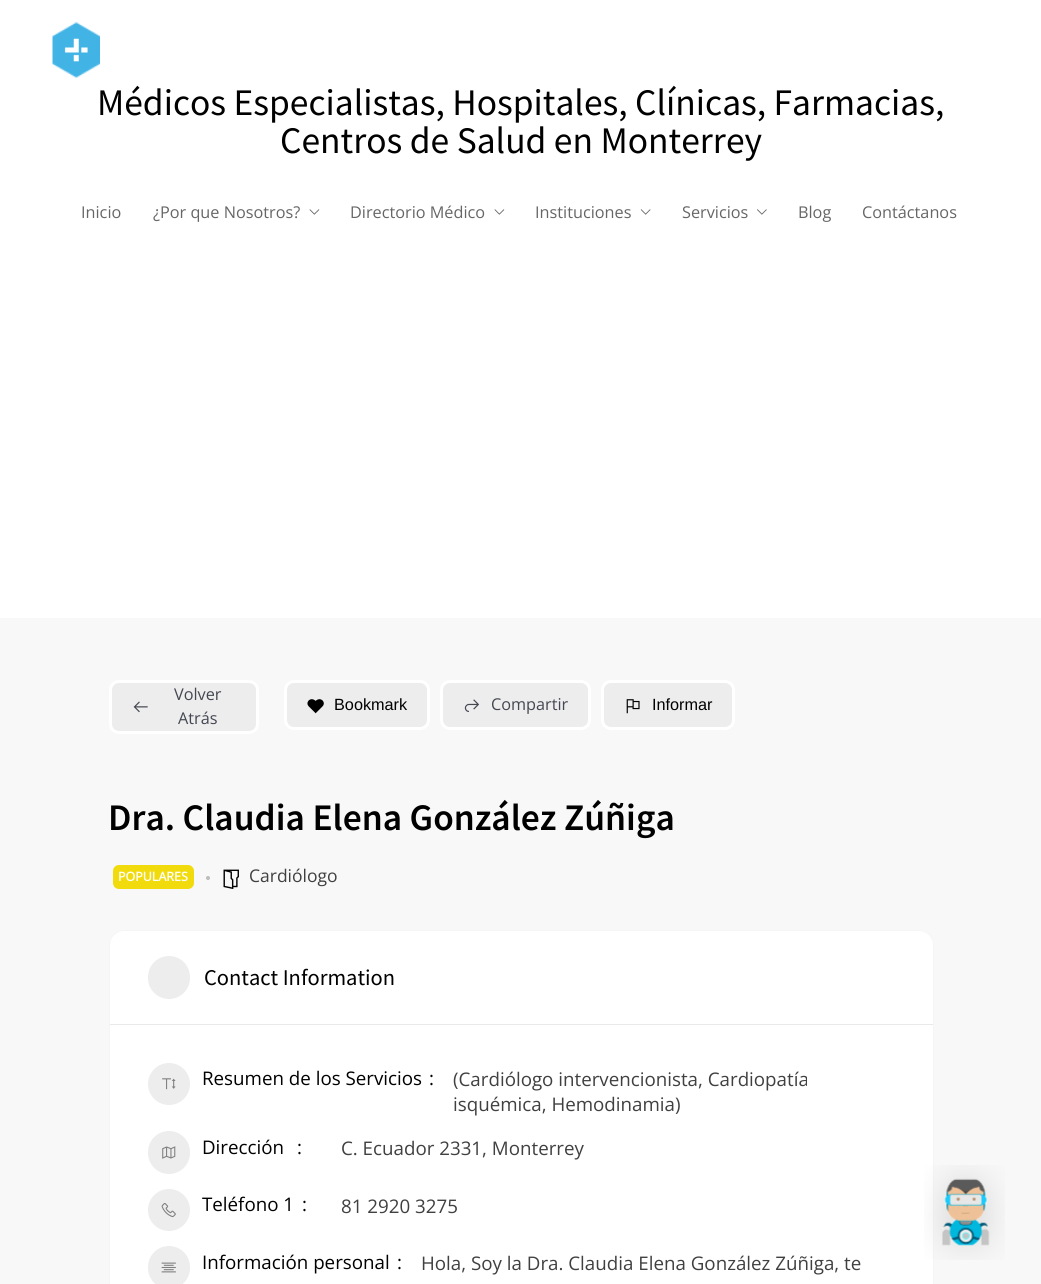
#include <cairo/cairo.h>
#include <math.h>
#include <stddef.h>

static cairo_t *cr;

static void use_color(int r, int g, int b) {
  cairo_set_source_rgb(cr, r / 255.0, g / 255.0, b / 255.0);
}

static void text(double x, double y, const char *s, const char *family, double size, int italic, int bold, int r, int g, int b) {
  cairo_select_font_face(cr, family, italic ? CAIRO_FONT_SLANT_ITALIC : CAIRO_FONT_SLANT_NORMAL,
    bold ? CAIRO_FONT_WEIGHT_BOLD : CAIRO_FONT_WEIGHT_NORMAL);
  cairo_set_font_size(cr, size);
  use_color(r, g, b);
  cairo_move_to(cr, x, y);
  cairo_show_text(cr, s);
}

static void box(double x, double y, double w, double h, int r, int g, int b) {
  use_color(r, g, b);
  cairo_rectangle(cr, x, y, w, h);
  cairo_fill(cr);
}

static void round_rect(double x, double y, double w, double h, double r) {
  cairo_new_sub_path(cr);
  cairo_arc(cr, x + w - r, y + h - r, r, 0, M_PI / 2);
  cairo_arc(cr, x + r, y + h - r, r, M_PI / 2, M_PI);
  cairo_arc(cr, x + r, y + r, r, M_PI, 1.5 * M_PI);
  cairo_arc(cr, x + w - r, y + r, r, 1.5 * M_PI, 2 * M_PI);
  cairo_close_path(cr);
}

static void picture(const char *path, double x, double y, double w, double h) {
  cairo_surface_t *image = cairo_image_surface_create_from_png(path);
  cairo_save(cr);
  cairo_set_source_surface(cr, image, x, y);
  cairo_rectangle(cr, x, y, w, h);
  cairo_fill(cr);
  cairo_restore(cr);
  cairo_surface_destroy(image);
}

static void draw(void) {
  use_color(248, 248, 248);
  cairo_paint(cr);
  box(0, 0, 1041, 618, 255, 255, 255);
  picture("img_01.png", 52, 22, 48, 56);
  picture("img_02.png", 309, 209, 11, 6);
  picture("img_02.png", 494, 209, 11, 6);
  picture("img_03.png", 640, 209, 11, 6);
  picture("img_04.png", 757, 209, 10, 6);
  use_color(237, 237, 237);
  round_rect(110.5, 681.5, 147, 51, 8.5);
  cairo_fill_preserve(cr);
  use_color(255, 255, 255);
  cairo_set_line_width(cr, 3);
  cairo_stroke(cr);
  picture("img_05.png", 133, 701, 15, 12);
  use_color(237, 237, 237);
  round_rect(285.5, 681.5, 143, 47, 8.5);
  cairo_fill_preserve(cr);
  use_color(255, 255, 255);
  cairo_stroke(cr);
  picture("img_06.png", 307, 699, 17, 15);
  use_color(237, 237, 237);
  round_rect(441.5, 681.5, 148, 47, 8.5);
  cairo_fill_preserve(cr);
  use_color(255, 255, 255);
  cairo_stroke(cr);
  picture("img_07.png", 464, 699, 15, 13);
  use_color(237, 237, 237);
  round_rect(602.5, 681.5, 131, 47, 8.5);
  cairo_fill_preserve(cr);
  use_color(255, 255, 255);
  cairo_stroke(cr);
  picture("img_08.png", 626, 699, 14, 15);
  use_color(242, 219, 13);
  round_rect(113, 865, 81, 24, 6);
  cairo_fill(cr);
  use_color(188, 188, 188);
  cairo_arc(cr, 208, 878, 2, 0, 2 * M_PI);
  cairo_fill(cr);
  picture("img_09.png", 223, 869, 16, 20);
  use_color(255, 255, 255);
  round_rect(109.5, 930.5, 824, 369, 14.5);
  cairo_fill_preserve(cr);
  use_color(245, 245, 245);
  cairo_set_line_width(cr, 1);
  cairo_stroke(cr);
  box(110, 1024, 823, 1, 233, 233, 233);
  use_color(237, 237, 237);
  round_rect(148, 956, 42, 43, 21);
  cairo_fill(cr);
  cairo_arc(cr, 169, 1084, 21, 0, 2 * M_PI);
  cairo_fill(cr);
  picture("img_10.png", 162, 1078, 14, 12);
  round_rect(148, 1131, 42, 43, 21);
  cairo_fill(cr);
  picture("img_11.png", 162, 1146, 14, 13);
  cairo_arc(cr, 169, 1210, 21, 0, 2 * M_PI);
  cairo_fill(cr);
  picture("img_12.png", 161, 1203, 15, 15);
  round_rect(148, 1246, 42, 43, 21);
  cairo_fill(cr);
  picture("img_13.png", 161, 1262, 15, 11);
  picture("img_14.png", 924, 1165, 81, 95);
  text(97, 115, "Médicos Especialistas, Hospitales, Clínicas, Farmacias,", "Source Sans Pro", 37.5, 0, 0, 0, 0, 0);
  text(280, 153, "Centros de Salud en Monterrey", "Source Sans Pro", 37.5, 0, 0, 0, 0, 0);
  text(81, 218, "Inicio", "Open Sans", 16.25, 0, 0, 102, 102, 102);
  text(153, 218, "¿Por que Nosotros?", "Open Sans", 16.25, 0, 0, 102, 102, 102);
  text(350, 218, "Directorio Médico", "Open Sans", 16.25, 0, 0, 102, 102, 102);
  text(535, 218, "Instituciones", "Open Sans", 16.25, 0, 0, 102, 102, 102);
  text(682, 218, "Servicios", "Open Sans", 16.25, 0, 0, 102, 102, 102);
  text(798, 218, "Blog", "Open Sans", 16.25, 0, 0, 102, 102, 102);
  text(862, 218, "Contáctanos", "Open Sans", 16.25, 0, 0, 102, 102, 102);
  text(174, 700, "Volver", "Open Sans", 16.25, 0, 0, 68, 71, 82);
  text(178, 724, "Atrás", "Open Sans", 16.25, 0, 0, 68, 71, 82);
  text(334, 710, "Bookmark", "Liberation Sans", 16.25, 0, 0, 0, 0, 0);
  text(491, 710, "Compartir", "Open Sans", 16.25, 0, 0, 68, 71, 82);
  text(652, 710, "Informar", "Liberation Sans", 16.25, 0, 0, 0, 0, 0);
  text(108, 830, "Dra. Claudia Elena González Zúñiga", "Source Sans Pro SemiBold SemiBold", 37.5, 0, 0, 0, 0, 0);
  text(118, 881, "POPULARES", "Open Sans", 12.5, 0, 1, 255, 255, 255);
  text(249, 882, "Cardiólogo", "Open Sans", 17.5, 0, 0, 64, 64, 64);
  text(204, 985, "Contact Information", "Source Sans Pro", 22.5, 0, 0, 0, 0, 0);
  text(202, 1085, "Resumen de los Servicios", "Open Sans", 18.75, 0, 0, 0, 0, 0);
  text(429, 1085, ":", "Open Sans", 18.75, 0, 0, 0, 0, 0);
  text(453, 1086, "(Cardiólogo intervencionista, Cardiopatía", "Open Sans", 18.75, 0, 0, 64, 64, 64);
  text(453, 1111, "isquémica, Hemodinamia)", "Open Sans", 18.75, 0, 0, 64, 64, 64);
  text(202, 1154, "Dirección", "Open Sans", 18.75, 0, 0, 0, 0, 0);
  text(297, 1154, ":", "Open Sans", 18.75, 0, 0, 0, 0, 0);
  text(341, 1155, "C. Ecuador 2331, Monterrey", "Open Sans", 18.75, 0, 0, 64, 64, 64);
  text(202, 1211, "Teléfono 1", "Open Sans", 18.75, 0, 0, 0, 0, 0);
  text(302, 1211, ":", "Open Sans", 18.75, 0, 0, 0, 0, 0);
  text(341, 1213, "81 2920 3275", "Open Sans", 18.75, 0, 0, 64, 64, 64);
  text(202, 1269, "Información personal", "Open Sans", 18.75, 0, 0, 0, 0, 0);
  text(397, 1269, ":", "Open Sans", 18.75, 0, 0, 0, 0, 0);
  text(421, 1270, "Hola, Soy la Dra. Claudia Elena González Zúñiga, te", "Open Sans", 18.75, 0, 0, 64, 64, 64);
}

int main(void) {
  cairo_surface_t *surface = cairo_image_surface_create(CAIRO_FORMAT_RGB24, 1041, 1284);
  cr = cairo_create(surface);
  cairo_font_options_t *options = cairo_font_options_create();
  cairo_font_options_set_hint_metrics(options, CAIRO_HINT_METRICS_OFF);
  cairo_font_options_set_hint_style(options, CAIRO_HINT_STYLE_NONE);
  cairo_set_font_options(cr, options);
  cairo_set_miter_limit(cr, 4);
  draw();
  cairo_surface_write_to_png(surface, "out.png");
  cairo_font_options_destroy(options);
  cairo_destroy(cr);
  cairo_surface_destroy(surface);
  return 0;
}
